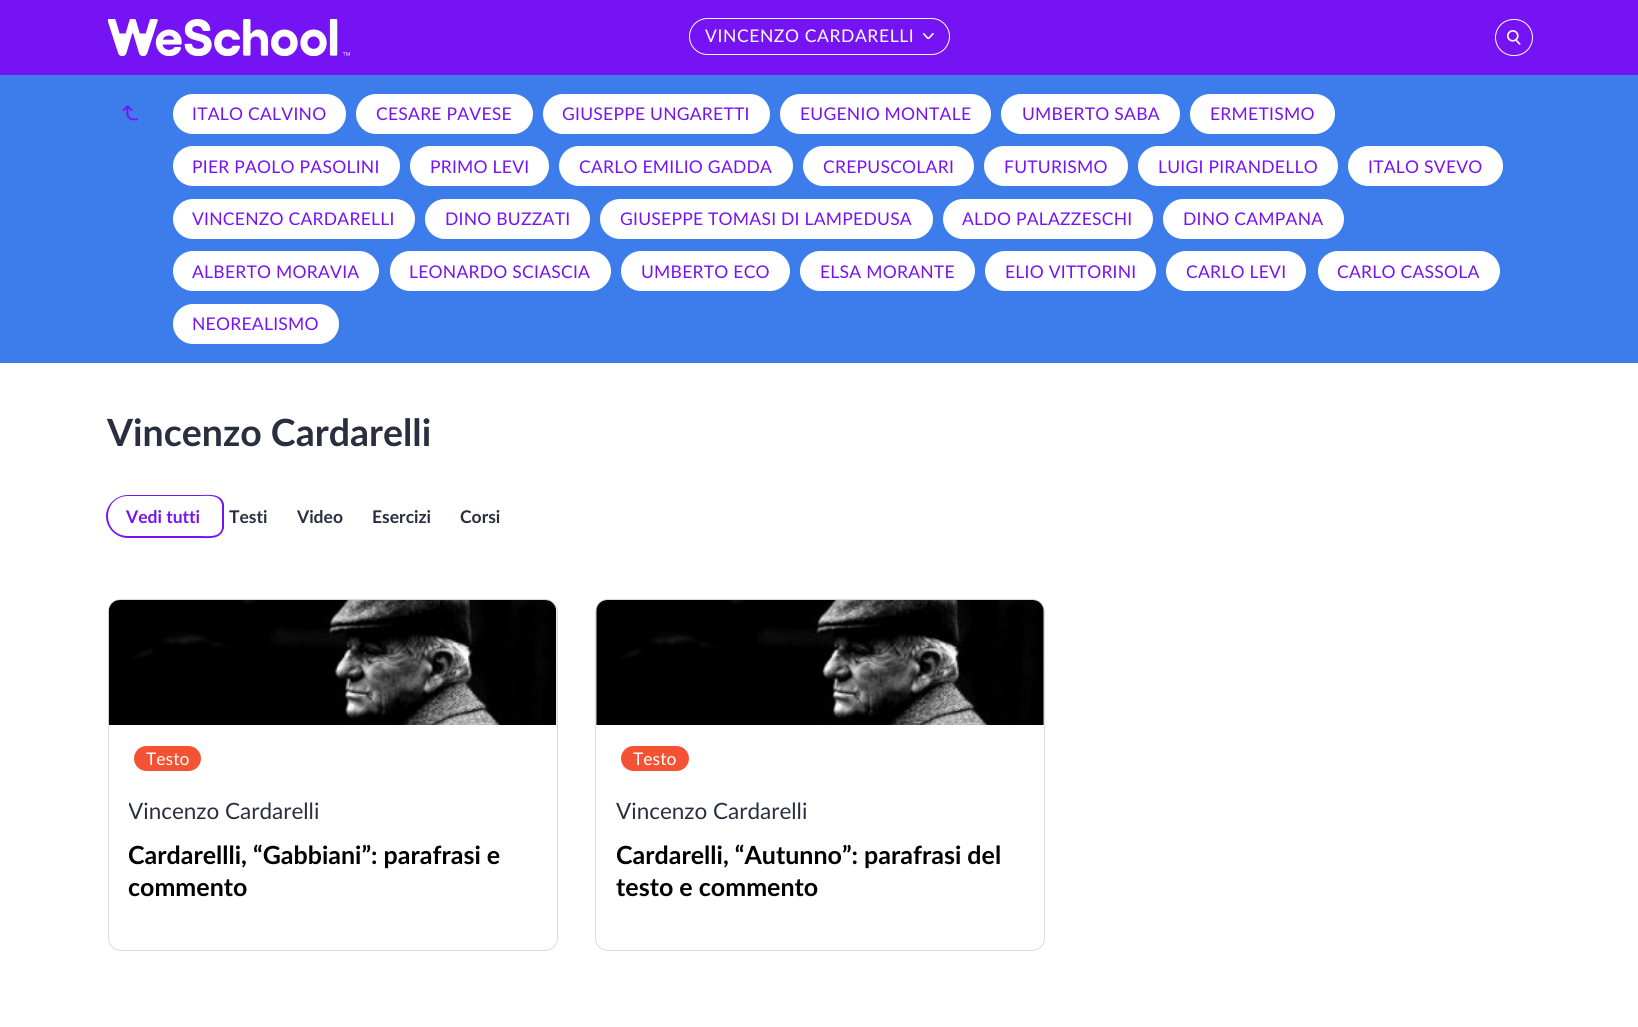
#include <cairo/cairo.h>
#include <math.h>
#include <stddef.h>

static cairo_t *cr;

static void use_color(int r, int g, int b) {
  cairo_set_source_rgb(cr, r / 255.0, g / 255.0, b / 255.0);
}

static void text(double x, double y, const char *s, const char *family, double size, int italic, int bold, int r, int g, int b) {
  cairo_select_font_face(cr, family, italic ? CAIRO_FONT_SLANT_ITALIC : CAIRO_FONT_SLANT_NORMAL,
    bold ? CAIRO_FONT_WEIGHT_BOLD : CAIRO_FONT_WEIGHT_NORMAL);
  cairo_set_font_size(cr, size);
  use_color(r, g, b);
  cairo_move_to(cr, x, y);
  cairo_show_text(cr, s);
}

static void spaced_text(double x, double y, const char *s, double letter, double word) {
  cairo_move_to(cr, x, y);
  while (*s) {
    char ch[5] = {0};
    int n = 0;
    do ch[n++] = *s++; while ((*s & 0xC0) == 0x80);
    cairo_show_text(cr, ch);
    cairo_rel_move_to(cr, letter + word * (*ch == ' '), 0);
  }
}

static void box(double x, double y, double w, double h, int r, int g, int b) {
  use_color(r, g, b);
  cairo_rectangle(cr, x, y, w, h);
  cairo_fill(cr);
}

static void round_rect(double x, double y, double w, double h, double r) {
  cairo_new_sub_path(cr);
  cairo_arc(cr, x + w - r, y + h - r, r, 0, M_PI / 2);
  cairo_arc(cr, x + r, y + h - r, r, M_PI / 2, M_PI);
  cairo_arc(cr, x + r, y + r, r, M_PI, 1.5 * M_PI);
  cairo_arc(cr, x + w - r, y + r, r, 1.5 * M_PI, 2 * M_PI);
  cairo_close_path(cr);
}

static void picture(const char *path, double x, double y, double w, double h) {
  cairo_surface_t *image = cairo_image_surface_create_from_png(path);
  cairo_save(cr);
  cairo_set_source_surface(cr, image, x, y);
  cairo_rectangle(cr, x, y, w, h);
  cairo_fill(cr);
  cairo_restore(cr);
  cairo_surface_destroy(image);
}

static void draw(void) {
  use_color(255, 255, 255);
  cairo_paint(cr);
  box(0, 0, 1638, 75, 118, 19, 244);
  picture("img_01.png", 108, 19, 242, 37);
  round_rect(689.5, 18.5, 260, 36, 18);
  use_color(255, 255, 255);
  cairo_set_line_width(cr, 1);
  cairo_stroke(cr);
  picture("img_02.png", 923, 33, 11, 6);
  picture("img_03.png", 1507, 30, 14, 15);
  round_rect(1495.5, 19.5, 37, 36, 18);
  cairo_stroke(cr);
  box(0, 75, 1638, 288, 61, 125, 235);
  picture("img_04.png", 122, 105, 16, 16);
  use_color(255, 255, 255);
  round_rect(173, 94, 173, 40, 20);
  cairo_fill(cr);
  round_rect(356, 94, 177, 40, 20);
  cairo_fill(cr);
  round_rect(543, 94, 227, 40, 20);
  cairo_fill(cr);
  round_rect(780, 94, 211, 40, 20);
  cairo_fill(cr);
  round_rect(1001, 94, 179, 40, 20);
  cairo_fill(cr);
  round_rect(1190, 94, 145, 40, 20);
  cairo_fill(cr);
  round_rect(173, 146, 227, 40, 20);
  cairo_fill(cr);
  round_rect(410, 146, 139, 40, 20);
  cairo_fill(cr);
  round_rect(559, 146, 234, 40, 20);
  cairo_fill(cr);
  round_rect(803, 146, 171, 40, 20);
  cairo_fill(cr);
  round_rect(984, 146, 144, 40, 20);
  cairo_fill(cr);
  round_rect(1138, 146, 200, 40, 20);
  cairo_fill(cr);
  round_rect(1348, 146, 155, 40, 20);
  cairo_fill(cr);
  round_rect(173, 199, 242, 40, 20);
  cairo_fill(cr);
  round_rect(425, 199, 165, 40, 20);
  cairo_fill(cr);
  round_rect(600, 199, 333, 40, 20);
  cairo_fill(cr);
  round_rect(943, 199, 210, 40, 20);
  cairo_fill(cr);
  round_rect(1163, 199, 181, 40, 20);
  cairo_fill(cr);
  round_rect(173, 251, 206, 40, 20);
  cairo_fill(cr);
  round_rect(390, 251, 221, 40, 20);
  cairo_fill(cr);
  round_rect(621, 251, 169, 40, 20);
  cairo_fill(cr);
  round_rect(800, 251, 175, 40, 20);
  cairo_fill(cr);
  round_rect(985, 251, 171, 40, 20);
  cairo_fill(cr);
  round_rect(1166, 251, 140, 40, 20);
  cairo_fill(cr);
  round_rect(1318, 251, 182, 40, 20);
  cairo_fill(cr);
  round_rect(173, 304, 166, 40, 20);
  cairo_fill(cr);
  use_color(118, 19, 244);
  cairo_set_fill_rule(cr, CAIRO_FILL_RULE_EVEN_ODD);
  cairo_new_path(cr);
  cairo_move_to(cr, 128, 495);
  cairo_line_to(cr, 200, 495);
  cairo_line_to(cr, 200, 538);
  cairo_line_to(cr, 128, 538);
  cairo_curve_to(cr, 116, 538, 106, 528, 106, 516);
  cairo_curve_to(cr, 106, 505, 116, 495, 128, 495);
  cairo_close_path(cr);
  cairo_move_to(cr, 128, 496);
  cairo_line_to(cr, 200, 496);
  cairo_line_to(cr, 200, 536);
  cairo_line_to(cr, 128, 536);
  cairo_curve_to(cr, 116, 536, 108, 527, 108, 516);
  cairo_curve_to(cr, 108, 505, 116, 496, 128, 496);
  cairo_close_path(cr);
  cairo_fill(cr);
  cairo_new_path(cr);
  cairo_move_to(cr, 200, 495);
  cairo_curve_to(cr, 209, 495, 221, 493, 224, 504);
  cairo_line_to(cr, 224, 528);
  cairo_curve_to(cr, 221, 540, 209, 538, 200, 538);
  cairo_close_path(cr);
  cairo_move_to(cr, 200, 496);
  cairo_curve_to(cr, 208, 496, 220, 494, 222, 505);
  cairo_line_to(cr, 222, 528);
  cairo_curve_to(cr, 220, 538, 208, 536, 200, 536);
  cairo_close_path(cr);
  cairo_fill(cr);
  round_rect(108.5, 599.5, 449, 351, 12.5);
  use_color(218, 218, 218);
  cairo_stroke(cr);
  picture("img_05.png", 108, 600, 449, 125);
  use_color(244, 82, 52);
  round_rect(134, 746, 67, 25, 12.5);
  cairo_fill(cr);
  round_rect(595.5, 599.5, 449, 351, 12.5);
  use_color(218, 218, 218);
  cairo_stroke(cr);
  picture("img_06.png", 596, 600, 448, 125);
  use_color(244, 82, 52);
  round_rect(621, 746, 68, 25, 12.5);
  cairo_fill(cr);
  cairo_select_font_face(cr, "Lato", CAIRO_FONT_SLANT_NORMAL, CAIRO_FONT_WEIGHT_NORMAL);
  cairo_set_font_size(cr, 17.5);
  use_color(255, 255, 255);
  spaced_text(705, 42, "VINCENZO CARDARELLI", 0.6, 0);
  use_color(118, 19, 244);
  spaced_text(192, 120, "ITALO CALVINO", 0.25, 0);
  spaced_text(376, 120, "CESARE PAVESE", 0.25, 0);
  spaced_text(562, 120, "GIUSEPPE UNGARETTI", 0.25, 0);
  spaced_text(800, 120, "EUGENIO MONTALE", 0.25, 0);
  spaced_text(1022, 120, "UMBERTO SABA", 0.25, 0);
  spaced_text(1210, 120, "ERMETISMO", 0.25, 0);
  spaced_text(192, 173, "PIER PAOLO PASOLINI", 0.25, 0);
  spaced_text(430, 173, "PRIMO LEVI", 0.25, 0);
  spaced_text(579, 173, "CARLO EMILIO GADDA", 0.25, 0);
  spaced_text(823, 173, "CREPUSCOLARI", 0.25, 0);
  spaced_text(1004, 173, "FUTURISMO", 0.25, 0);
  spaced_text(1158, 173, "LUIGI PIRANDELLO", 0.25, 0);
  spaced_text(1368, 173, "ITALO SVEVO", 0.25, 0);
  spaced_text(192, 225, "VINCENZO CARDARELLI", 0.25, 0);
  spaced_text(445, 225, "DINO BUZZATI", 0.25, 0);
  spaced_text(620, 225, "GIUSEPPE TOMASI DI LAMPEDUSA", 0.25, 0);
  spaced_text(962, 225, "ALDO PALAZZESCHI", 0.25, 0);
  spaced_text(1183, 225, "DINO CAMPANA", 0.25, 0);
  spaced_text(192, 278, "ALBERTO MORAVIA", 0.25, 0);
  spaced_text(409, 278, "LEONARDO SCIASCIA", 0.25, 0);
  spaced_text(641, 278, "UMBERTO ECO", 0.25, 0);
  spaced_text(820, 278, "ELSA MORANTE", 0.25, 0);
  spaced_text(1005, 278, "ELIO VITTORINI", 0.25, 0);
  spaced_text(1186, 278, "CARLO LEVI", 0.25, 0);
  spaced_text(1337, 278, "CARLO CASSOLA", 0.25, 0);
  spaced_text(192, 330, "NEOREALISMO", 0.25, 0);
  text(107, 446, "Vincenzo Cardarelli", "Lato", 37.5, 0, 1, 41, 47, 64);
  text(126, 523, "Vedi tutti", "Lato", 17.5, 0, 1, 118, 19, 244);
  text(229, 523, "Testi", "Lato", 17.5, 0, 1, 41, 47, 64);
  text(297, 523, "Video", "Lato", 17.5, 0, 1, 41, 47, 64);
  text(372, 523, "Esercizi", "Lato", 17.5, 0, 1, 41, 47, 64);
  text(460, 523, "Corsi", "Lato", 17.5, 0, 1, 41, 47, 64);
  text(146, 765, "Testo", "Lato", 17.5, 0, 0, 255, 255, 255);
  cairo_save(cr);
  cairo_set_fill_rule(cr, CAIRO_FILL_RULE_WINDING);
  cairo_rectangle(cr, 129, 796, 407, 28);
  cairo_clip(cr);
  text(128, 819, "Vincenzo Cardarelli", "Lato", 22.5, 0, 0, 41, 47, 64);
  cairo_restore(cr);
  text(128, 864, "Cardarellli, “Gabbiani”: parafrasi e", "Lato", 25, 0, 1, 0, 0, 0);
  text(128, 896, "commento", "Lato", 25, 0, 1, 0, 0, 0);
  text(633, 765, "Testo", "Lato", 17.5, 0, 0, 255, 255, 255);
  text(616, 819, "Vincenzo Cardarelli", "Lato", 22.5, 0, 0, 41, 47, 64);
  text(616, 864, "Cardarelli, “Autunno”: parafrasi del", "Lato", 25, 0, 1, 0, 0, 0);
  text(616, 896, "testo e commento", "Lato", 25, 0, 1, 0, 0, 0);
}

int main(void) {
  cairo_surface_t *surface = cairo_image_surface_create(CAIRO_FORMAT_RGB24, 1638, 1027);
  cr = cairo_create(surface);
  cairo_font_options_t *options = cairo_font_options_create();
  cairo_font_options_set_hint_metrics(options, CAIRO_HINT_METRICS_OFF);
  cairo_font_options_set_hint_style(options, CAIRO_HINT_STYLE_NONE);
  cairo_set_font_options(cr, options);
  cairo_set_miter_limit(cr, 4);
  draw();
  cairo_surface_write_to_png(surface, "out.png");
  cairo_font_options_destroy(options);
  cairo_destroy(cr);
  cairo_surface_destroy(surface);
  return 0;
}
